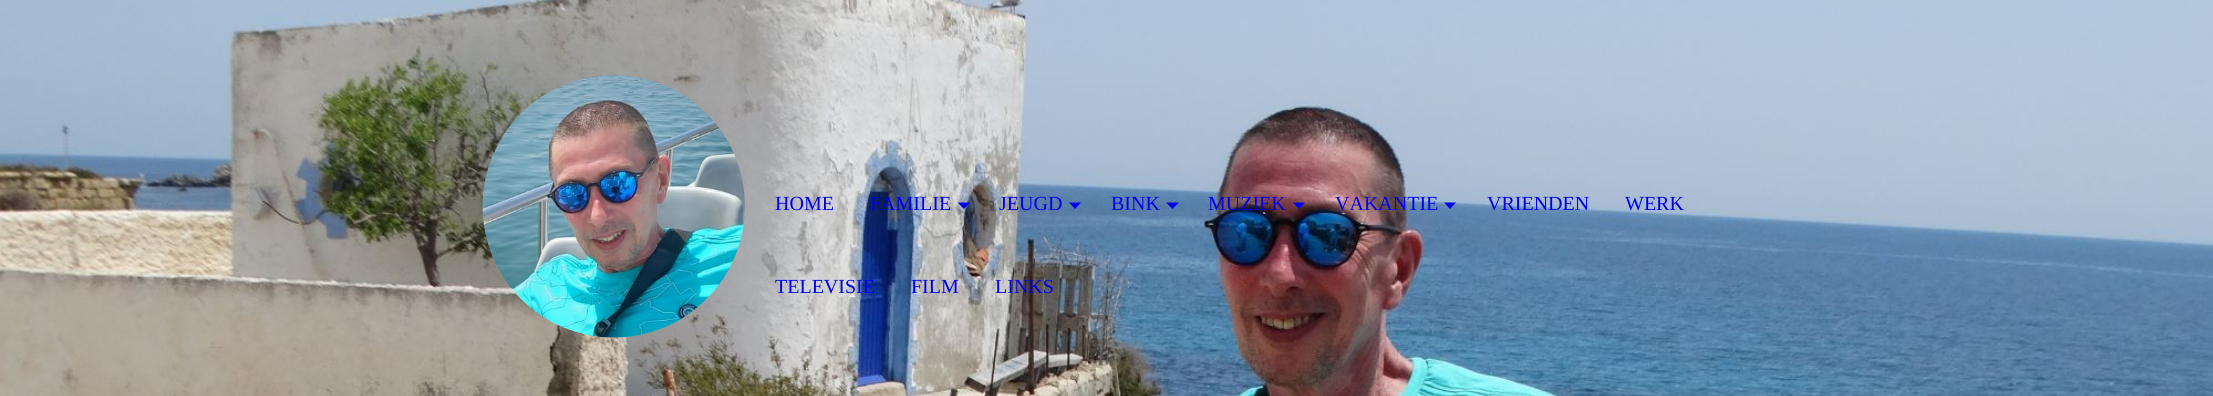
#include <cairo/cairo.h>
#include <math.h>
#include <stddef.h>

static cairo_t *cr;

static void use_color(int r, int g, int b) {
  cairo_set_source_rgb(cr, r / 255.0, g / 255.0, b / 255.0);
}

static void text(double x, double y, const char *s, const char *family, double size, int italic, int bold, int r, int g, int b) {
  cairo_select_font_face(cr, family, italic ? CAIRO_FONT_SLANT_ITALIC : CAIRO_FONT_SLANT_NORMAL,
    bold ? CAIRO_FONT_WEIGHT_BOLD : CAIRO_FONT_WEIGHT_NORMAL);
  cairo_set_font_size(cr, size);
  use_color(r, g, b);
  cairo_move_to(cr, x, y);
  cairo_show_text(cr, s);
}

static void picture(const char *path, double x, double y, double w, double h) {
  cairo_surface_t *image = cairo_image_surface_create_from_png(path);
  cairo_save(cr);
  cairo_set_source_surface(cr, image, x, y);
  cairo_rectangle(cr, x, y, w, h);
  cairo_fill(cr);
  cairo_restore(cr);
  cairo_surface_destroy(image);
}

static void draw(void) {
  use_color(255, 255, 255);
  cairo_paint(cr);
  picture("img_01.png", 0, 0, 2213, 396);
  picture("img_02.png", 482, 75, 263, 263);
  use_color(0, 0, 238);
  cairo_new_path(cr);
  cairo_move_to(cr, 957.5, 202.5);
  cairo_line_to(cr, 970, 202.5);
  cairo_line_to(cr, 964, 209);
  cairo_close_path(cr);
  cairo_fill(cr);
  cairo_new_path(cr);
  cairo_move_to(cr, 1069, 202.5);
  cairo_line_to(cr, 1081, 202.5);
  cairo_line_to(cr, 1075, 209);
  cairo_close_path(cr);
  cairo_fill(cr);
  cairo_new_path(cr);
  cairo_move_to(cr, 1166, 202.5);
  cairo_line_to(cr, 1179, 202.5);
  cairo_line_to(cr, 1172.5, 209);
  cairo_close_path(cr);
  cairo_fill(cr);
  cairo_new_path(cr);
  cairo_move_to(cr, 1292.5, 202.5);
  cairo_line_to(cr, 1305, 202.5);
  cairo_line_to(cr, 1299, 209);
  cairo_close_path(cr);
  cairo_fill(cr);
  cairo_new_path(cr);
  cairo_move_to(cr, 1444, 202.5);
  cairo_line_to(cr, 1456, 202.5);
  cairo_line_to(cr, 1450, 209);
  cairo_close_path(cr);
  cairo_fill(cr);
  text(775, 210, "HOME", "Liberation Serif", 20, 0, 0, 0, 0, 238);
  text(870, 210, "FAMILIE", "Liberation Serif", 20, 0, 0, 0, 0, 238);
  text(999, 210, "JEUGD", "Liberation Serif", 20, 0, 0, 0, 0, 238);
  text(1111, 210, "BINK", "Liberation Serif", 20, 0, 0, 0, 0, 238);
  text(1208, 210, "MUZIEK", "Liberation Serif", 20, 0, 0, 0, 0, 238);
  text(1335, 210, "VAKANTIE", "Liberation Serif", 20, 0, 0, 0, 0, 238);
  text(1487, 210, "VRIENDEN", "Liberation Serif", 20, 0, 0, 0, 0, 238);
  text(1625, 210, "WERK", "Liberation Serif", 20, 0, 0, 0, 0, 238);
  text(775, 293, "TELEVISIE", "Liberation Serif", 20, 0, 0, 0, 0, 238);
  text(911, 293, "FILM", "Liberation Serif", 20, 0, 0, 0, 0, 238);
  text(995, 293, "LINKS", "Liberation Serif", 20, 0, 0, 0, 0, 238);
}

int main(void) {
  cairo_surface_t *surface = cairo_image_surface_create(CAIRO_FORMAT_RGB24, 2213, 396);
  cr = cairo_create(surface);
  cairo_font_options_t *options = cairo_font_options_create();
  cairo_font_options_set_hint_metrics(options, CAIRO_HINT_METRICS_OFF);
  cairo_font_options_set_hint_style(options, CAIRO_HINT_STYLE_NONE);
  cairo_set_font_options(cr, options);
  cairo_set_miter_limit(cr, 4);
  draw();
  cairo_surface_write_to_png(surface, "out.png");
  cairo_font_options_destroy(options);
  cairo_destroy(cr);
  cairo_surface_destroy(surface);
  return 0;
}
